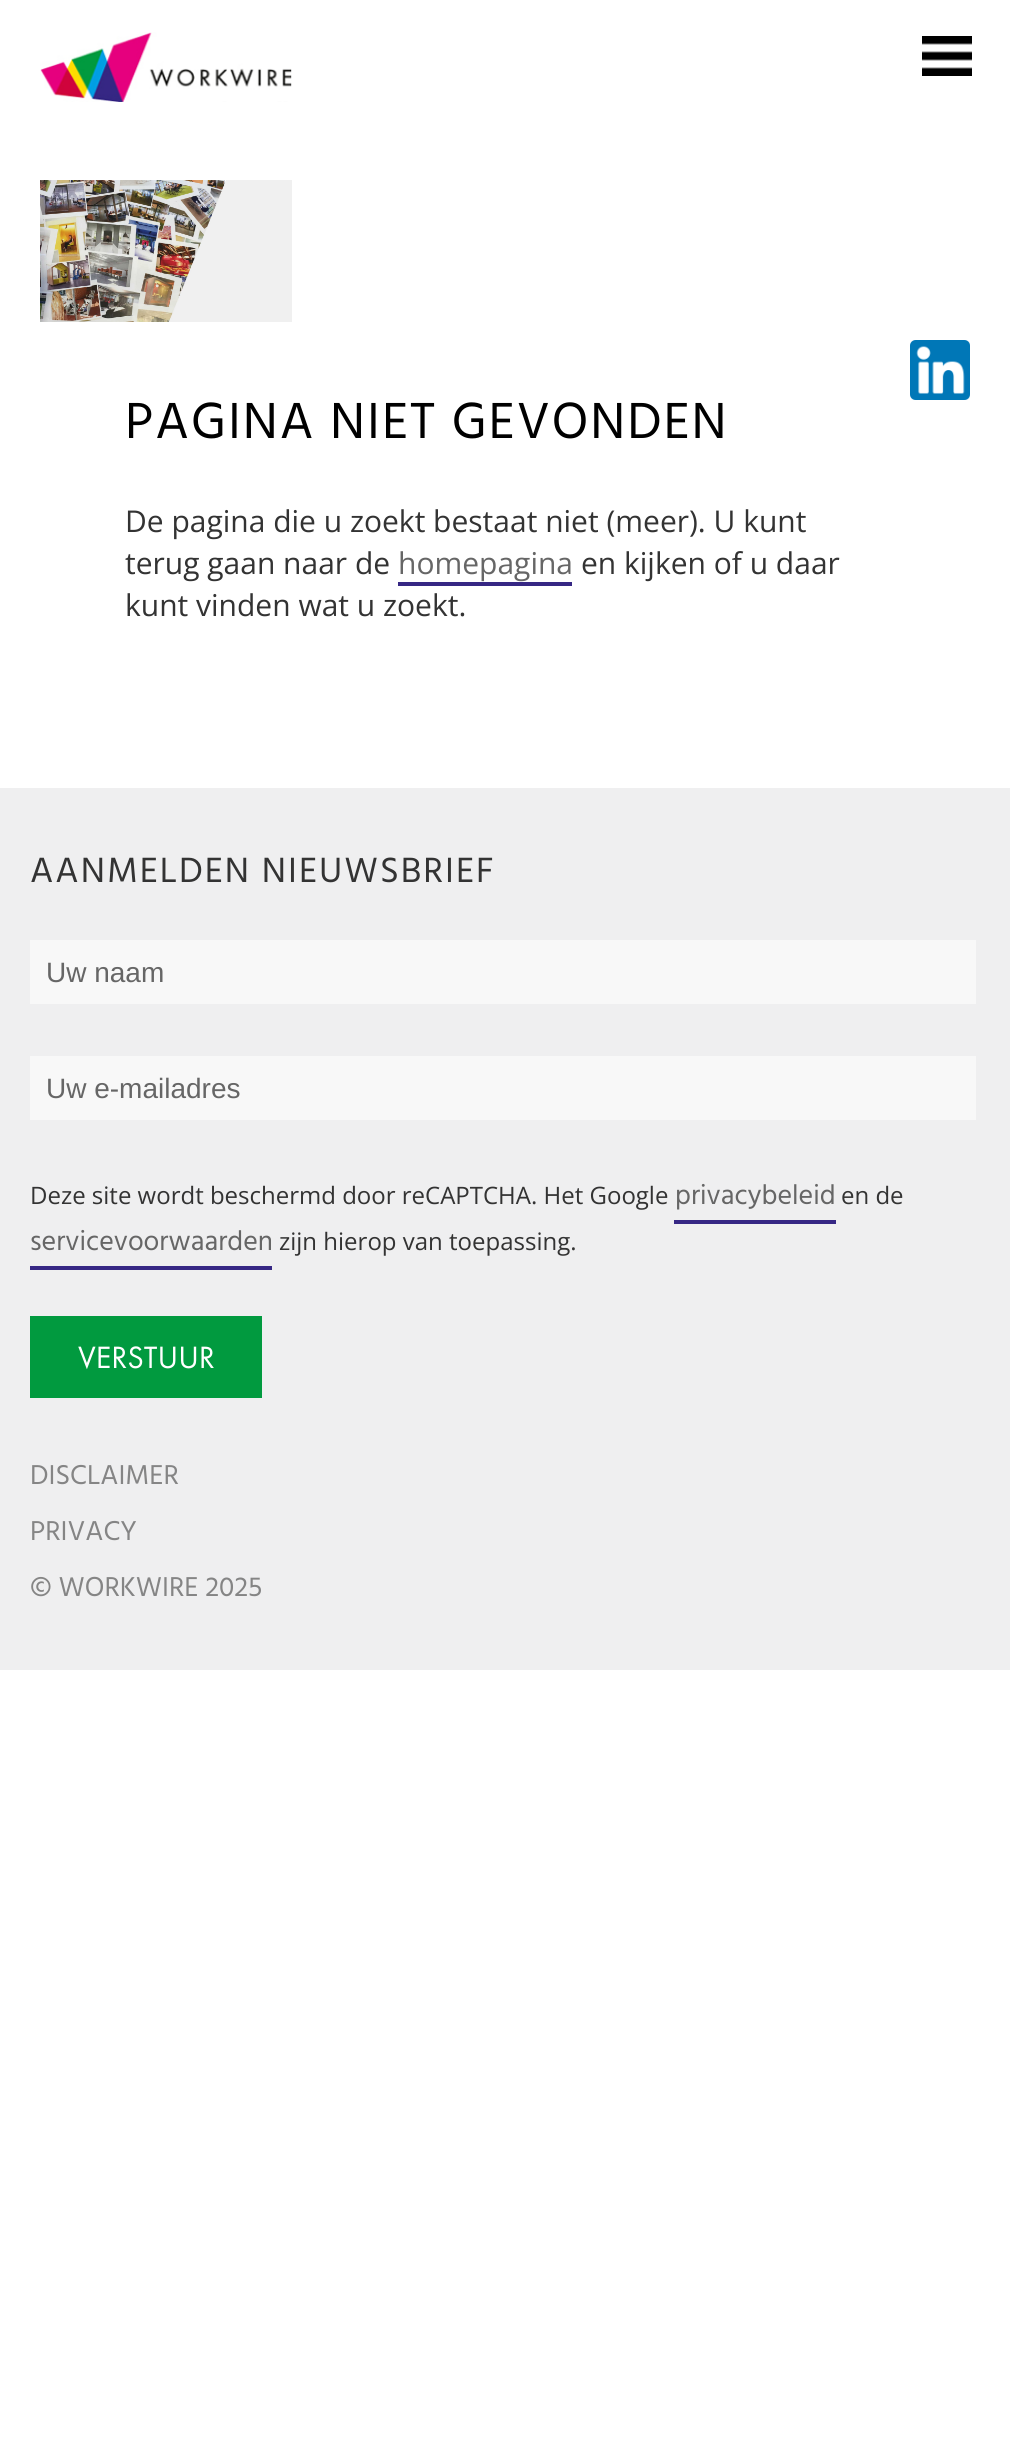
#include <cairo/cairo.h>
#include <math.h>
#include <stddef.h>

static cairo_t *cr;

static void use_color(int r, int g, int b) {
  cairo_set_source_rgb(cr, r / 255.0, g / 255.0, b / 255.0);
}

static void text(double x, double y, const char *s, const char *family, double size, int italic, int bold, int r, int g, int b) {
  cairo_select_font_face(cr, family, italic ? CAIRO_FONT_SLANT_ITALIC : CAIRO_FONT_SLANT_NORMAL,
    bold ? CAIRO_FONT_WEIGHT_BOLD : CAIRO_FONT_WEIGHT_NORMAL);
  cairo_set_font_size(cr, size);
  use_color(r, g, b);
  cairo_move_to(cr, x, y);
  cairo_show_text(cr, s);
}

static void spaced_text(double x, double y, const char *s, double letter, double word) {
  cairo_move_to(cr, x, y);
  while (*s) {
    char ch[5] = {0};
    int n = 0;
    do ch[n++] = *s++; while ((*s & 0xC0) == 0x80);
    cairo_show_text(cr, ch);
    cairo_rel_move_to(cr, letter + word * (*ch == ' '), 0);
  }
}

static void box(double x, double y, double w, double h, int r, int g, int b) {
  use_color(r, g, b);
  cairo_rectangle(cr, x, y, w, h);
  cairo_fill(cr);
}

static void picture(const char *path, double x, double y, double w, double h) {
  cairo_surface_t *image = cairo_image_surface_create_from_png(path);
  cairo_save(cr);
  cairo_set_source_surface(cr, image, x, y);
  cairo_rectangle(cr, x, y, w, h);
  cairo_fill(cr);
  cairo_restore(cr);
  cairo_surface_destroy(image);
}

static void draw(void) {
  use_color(255, 255, 255);
  cairo_paint(cr);
  picture("img_01.png", 40, 32, 252, 70);
  picture("img_02.png", 922, 36, 50, 40);
  picture("img_03.png", 910, 340, 60, 60);
  picture("img_04.png", 40, 180, 252, 142);
  box(398, 582, 174, 4, 54, 39, 132);
  box(0, 788, 1010, 882, 239, 239, 240);
  box(30, 940, 946, 64, 248, 248, 248);
  box(30, 1056, 946, 64, 248, 248, 248);
  box(674, 1220, 162, 4, 54, 39, 132);
  box(30, 1266, 242, 4, 54, 39, 132);
  box(30, 1316, 232, 82, 1, 154, 63);
  cairo_select_font_face(cr, "Hind", CAIRO_FONT_SLANT_NORMAL, CAIRO_FONT_WEIGHT_NORMAL);
  cairo_set_font_size(cr, 52);
  use_color(0, 0, 0);
  spaced_text(125, 438, "PAGINA NIET GEVONDEN", 2, 0);
  text(125, 532, "De pagina die u zoekt bestaat niet (meer). U kunt", "Open Sans", 30, 0, 0, 51, 51, 51);
  text(125, 574, "terug gaan naar de", "Open Sans", 30, 0, 0, 51, 51, 51);
  text(398, 574, "homepagina", "Open Sans", 30, 0, 0, 102, 102, 102);
  text(581, 574, "en kijken of u daar", "Open Sans", 30, 0, 0, 51, 51, 51);
  text(125, 616, "kunt vinden wat u zoekt.", "Open Sans", 30, 0, 0, 51, 51, 51);
  cairo_select_font_face(cr, "Hind", CAIRO_FONT_SLANT_NORMAL, CAIRO_FONT_WEIGHT_NORMAL);
  cairo_set_font_size(cr, 36);
  spaced_text(30, 882, "AANMELDEN NIEUWSBRIEF", 2, 0);
  text(46, 982, "Uw naam", "Liberation Sans", 28, 0, 0, 102, 102, 102);
  text(46, 1098, "Uw e-mailadres", "Liberation Sans", 28, 0, 0, 102, 102, 102);
  text(30, 1204, "Deze site wordt beschermd door reCAPTCHA. Het Google", "Open Sans", 24, 0, 0, 51, 51, 51);
  text(675, 1204, "privacybeleid", "Hind", 28, 0, 0, 102, 102, 102);
  text(841, 1204, "en de", "Open Sans", 24, 0, 0, 51, 51, 51);
  text(30, 1250, "servicevoorwaarden", "Hind", 28, 0, 0, 102, 102, 102);
  text(279, 1250, "zijn hierop van toepassing.", "Open Sans", 24, 0, 0, 51, 51, 51);
  text(78, 1368, "VERSTUUR", "Futura PT", 32, 0, 0, 255, 255, 255);
  text(30, 1484, "DISCLAIMER", "Hind", 28, 0, 0, 133, 133, 133);
  text(30, 1540, "PRIVACY", "Hind", 28, 0, 0, 133, 133, 133);
  text(30, 1596, "© WORKWIRE 2025", "Hind", 28, 0, 0, 133, 133, 133);
}

int main(void) {
  cairo_surface_t *surface = cairo_image_surface_create(CAIRO_FORMAT_RGB24, 1010, 2442);
  cr = cairo_create(surface);
  cairo_font_options_t *options = cairo_font_options_create();
  cairo_font_options_set_hint_metrics(options, CAIRO_HINT_METRICS_OFF);
  cairo_font_options_set_hint_style(options, CAIRO_HINT_STYLE_NONE);
  cairo_set_font_options(cr, options);
  cairo_set_miter_limit(cr, 4);
  draw();
  cairo_surface_write_to_png(surface, "out.png");
  cairo_font_options_destroy(options);
  cairo_destroy(cr);
  cairo_surface_destroy(surface);
  return 0;
}
